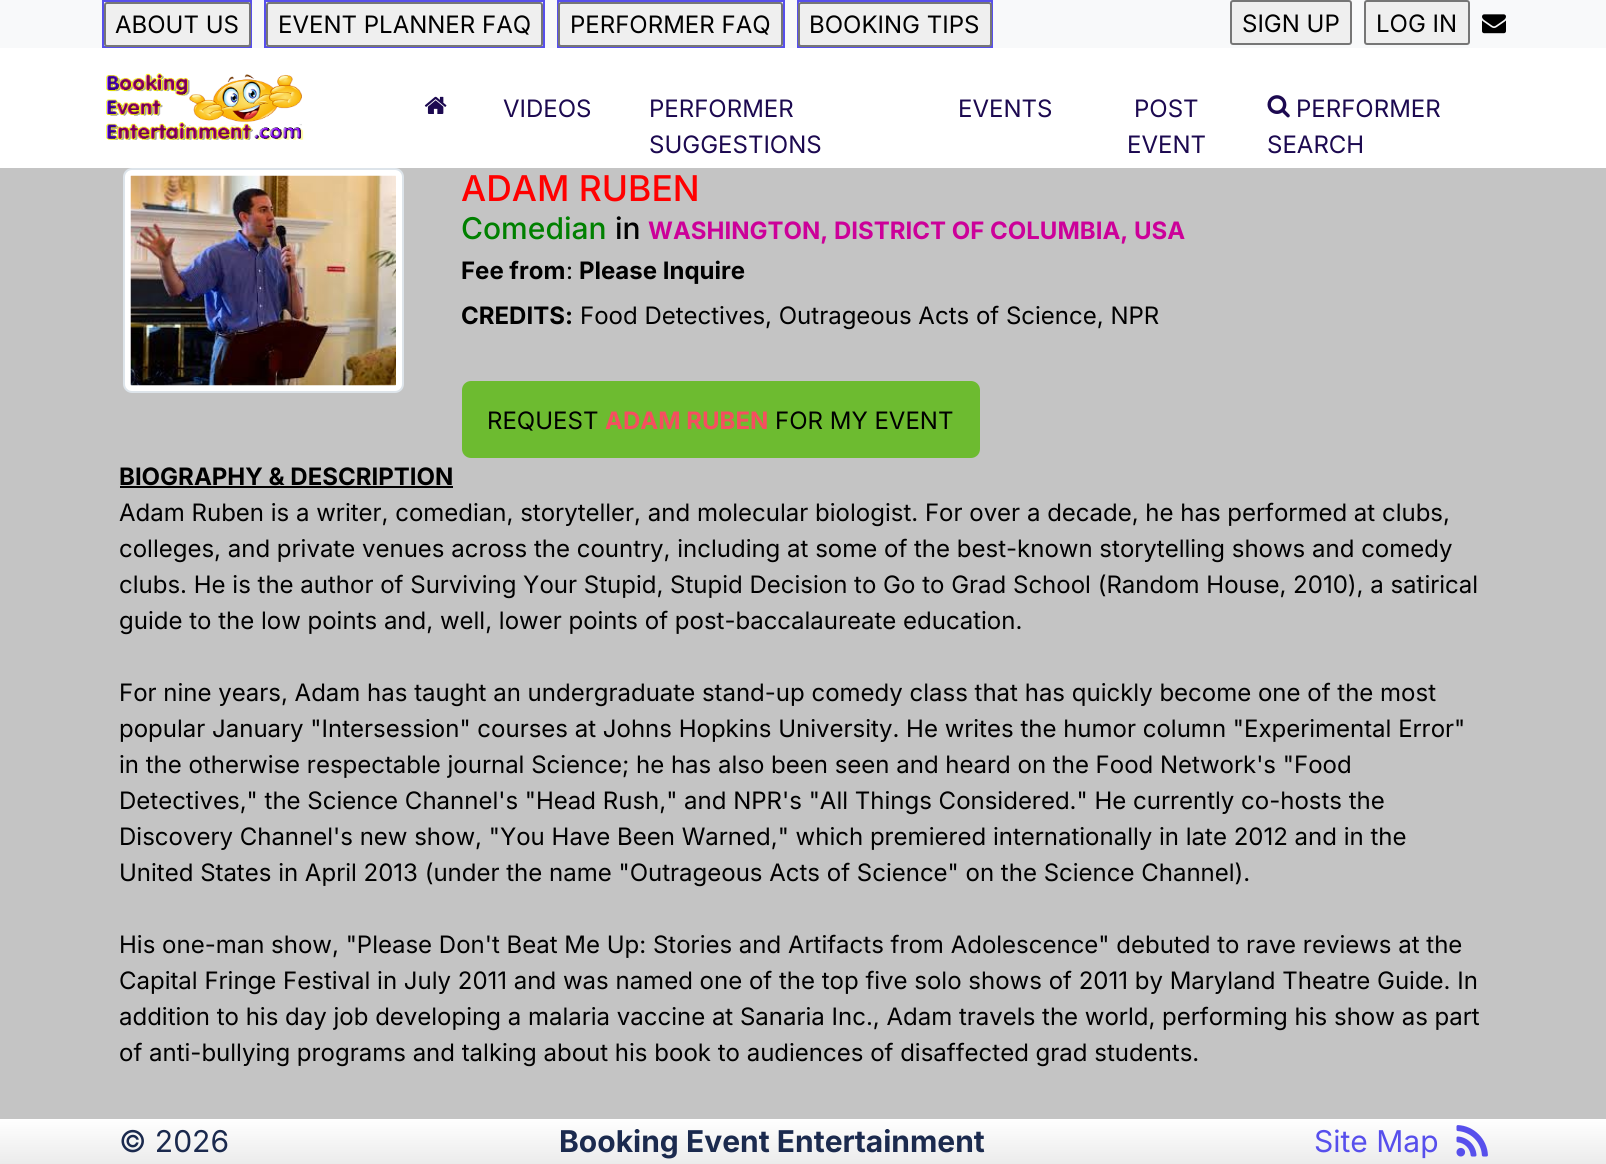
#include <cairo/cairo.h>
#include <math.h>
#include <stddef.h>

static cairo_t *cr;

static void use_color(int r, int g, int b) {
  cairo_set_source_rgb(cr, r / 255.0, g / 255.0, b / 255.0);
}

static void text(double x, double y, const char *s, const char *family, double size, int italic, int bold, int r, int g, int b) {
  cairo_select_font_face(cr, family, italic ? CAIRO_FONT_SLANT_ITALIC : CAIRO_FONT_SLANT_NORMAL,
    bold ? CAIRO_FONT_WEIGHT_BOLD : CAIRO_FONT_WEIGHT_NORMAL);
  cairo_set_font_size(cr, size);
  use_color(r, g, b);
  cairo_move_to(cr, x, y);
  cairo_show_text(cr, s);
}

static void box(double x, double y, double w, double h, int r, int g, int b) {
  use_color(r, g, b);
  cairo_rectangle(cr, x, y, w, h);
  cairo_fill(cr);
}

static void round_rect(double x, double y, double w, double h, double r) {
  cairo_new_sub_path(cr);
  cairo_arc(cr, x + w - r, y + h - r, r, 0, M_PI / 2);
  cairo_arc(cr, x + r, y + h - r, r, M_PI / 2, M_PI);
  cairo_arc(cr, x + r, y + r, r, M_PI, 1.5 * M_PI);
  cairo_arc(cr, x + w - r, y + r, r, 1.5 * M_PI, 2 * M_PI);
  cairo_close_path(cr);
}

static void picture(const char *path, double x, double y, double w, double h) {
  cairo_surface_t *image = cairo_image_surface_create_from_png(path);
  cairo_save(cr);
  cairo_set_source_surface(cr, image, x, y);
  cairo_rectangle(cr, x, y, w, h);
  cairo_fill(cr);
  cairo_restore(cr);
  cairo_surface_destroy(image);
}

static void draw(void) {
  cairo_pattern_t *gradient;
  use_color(196, 196, 196);
  cairo_paint(cr);
  box(0, 48, 1606, 120, 255, 255, 255);
  box(0, 0, 1606, 48, 248, 249, 250);
  use_color(241, 240, 253);
  cairo_rectangle(cr, 103, 1, 148, 46);
  cairo_fill_preserve(cr);
  use_color(87, 79, 236);
  cairo_stroke(cr);
  use_color(239, 239, 239);
  round_rect(105, 3, 145, 43, 2);
  cairo_fill_preserve(cr);
  use_color(118, 118, 118);
  cairo_stroke(cr);
  use_color(241, 240, 253);
  cairo_rectangle(cr, 265, 1, 279, 46);
  cairo_fill_preserve(cr);
  use_color(87, 79, 236);
  cairo_stroke(cr);
  use_color(239, 239, 239);
  round_rect(267, 3, 275, 43, 2);
  cairo_fill_preserve(cr);
  use_color(118, 118, 118);
  cairo_stroke(cr);
  use_color(241, 240, 253);
  cairo_rectangle(cr, 558, 1, 226, 46);
  cairo_fill_preserve(cr);
  use_color(87, 79, 236);
  cairo_stroke(cr);
  use_color(239, 239, 239);
  round_rect(559, 3, 223, 43, 2);
  cairo_fill_preserve(cr);
  use_color(118, 118, 118);
  cairo_stroke(cr);
  cairo_rectangle(cr, 798, 1, 194, 46);
  use_color(87, 79, 236);
  cairo_stroke(cr);
  use_color(239, 239, 239);
  round_rect(799, 3, 192, 43, 2);
  cairo_fill_preserve(cr);
  use_color(118, 118, 118);
  cairo_stroke(cr);
  use_color(239, 239, 239);
  round_rect(1231, 1, 120, 43, 2);
  cairo_fill_preserve(cr);
  use_color(118, 118, 118);
  cairo_stroke(cr);
  use_color(239, 239, 239);
  round_rect(1365, 1, 104, 43, 2);
  cairo_fill_preserve(cr);
  use_color(118, 118, 118);
  cairo_stroke(cr);
  picture("img_01.png", 1482, 14, 24, 20);
  picture("img_02.png", 106, 73, 198, 67);
  picture("img_03.png", 424, 96, 23, 18);
  picture("img_04.png", 1267, 95, 23, 23);
  use_color(255, 255, 255);
  round_rect(124, 169, 279, 223, 8);
  cairo_fill_preserve(cr);
  use_color(221, 228, 234);
  cairo_stroke(cr);
  picture("img_05.png", 130, 175, 266, 211);
  use_color(109, 187, 48);
  round_rect(463, 382, 516, 75, 8);
  cairo_fill_preserve(cr);
  cairo_stroke(cr);
  box(120, 486, 333, 2, 0, 0, 0);
  gradient = cairo_pattern_create_linear(803, 1119, 803, 1164);
  cairo_pattern_add_color_stop_rgba(gradient, 0, 1, 1, 1, 1);
  cairo_pattern_add_color_stop_rgba(gradient, 1, 0.922, 0.922, 0.922, 1);
  cairo_set_source(cr, gradient);
  cairo_pattern_destroy(gradient);
  cairo_rectangle(cr, 0, 1119, 1606, 45);
  cairo_fill(cr);
  picture("img_06.png", 1456, 1125, 32, 32);
  text(115, 33, "ABOUT US", "Inter", 24, 0, 0, 0, 0, 0);
  text(278, 33, "EVENT PLANNER FAQ", "Inter", 24, 0, 0, 0, 0, 0);
  text(570, 33, "PERFORMER FAQ", "Inter", 24, 0, 0, 0, 0, 0);
  text(809, 33, "BOOKING TIPS", "Inter", 24, 0, 0, 0, 0, 0);
  text(1242, 32, "SIGN UP", "Inter", 24, 0, 0, 0, 0, 0);
  text(1376, 32, "LOG IN", "Inter", 24, 0, 0, 0, 0, 0);
  text(503, 117, "VIDEOS", "Inter", 24, 0, 0, 28, 9, 80);
  text(649, 117, "PERFORMER", "Inter", 24, 0, 0, 28, 9, 80);
  text(649, 153, "SUGGESTIONS", "Inter", 24, 0, 0, 28, 9, 80);
  text(958, 117, "EVENTS", "Inter", 24, 0, 0, 28, 9, 80);
  text(1134, 117, "POST", "Inter", 24, 0, 0, 28, 9, 80);
  text(1127, 153, "EVENT", "Inter", 24, 0, 0, 28, 9, 80);
  text(1296, 117, "PERFORMER", "Inter", 24, 0, 0, 28, 9, 80);
  text(1267, 153, "SEARCH", "Inter", 24, 0, 0, 28, 9, 80);
  text(461, 201, "ADAM RUBEN", "Inter Medium", 35.5, 0, 0, 255, 0, 0);
  text(461, 239, "Comedian", "Inter Medium", 30, 0, 0, 0, 128, 0);
  text(615, 239, "in", "Inter Medium", 30, 0, 0, 0, 0, 0);
  text(648, 239, "WASHINGTON, DISTRICT OF COLUMBIA, USA", "Inter", 24, 0, 1, 204, 0, 153);
  text(461, 279, "Fee from", "Inter", 24, 0, 1, 0, 0, 0);
  text(566, 279, ":", "Inter", 24, 0, 0, 0, 0, 0);
  text(579, 279, "Please Inquire", "Inter", 24, 0, 1, 0, 0, 0);
  text(461, 324, "CREDITS:", "Inter", 24, 0, 1, 0, 0, 0);
  text(580, 324, "Food Detectives, Outrageous Acts of Science, NPR", "Inter", 24, 0, 0, 0, 0, 0);
  text(487, 429, "REQUEST", "Inter", 24, 0, 0, 0, 0, 0);
  text(605, 429, "ADAM RUBEN", "Inter", 24, 0, 1, 246, 78, 96);
  text(775, 429, "FOR MY EVENT", "Inter", 24, 0, 0, 0, 0, 0);
  text(119, 485, "BIOGRAPHY & DESCRIPTION", "Inter", 24, 0, 1, 0, 0, 0);
  text(119, 521, "Adam Ruben is a writer, comedian, storyteller, and molecular biologist. For over a decade, he has performed at clubs,", "Inter", 24, 0, 0, 0, 0, 0);
  text(119, 557, "colleges, and private venues across the country, including at some of the best-known storytelling shows and comedy", "Inter", 24, 0, 0, 0, 0, 0);
  text(119, 593, "clubs. He is the author of Surviving Your Stupid, Stupid Decision to Go to Grad School (Random House, 2010), a satirical", "Inter", 24, 0, 0, 0, 0, 0);
  text(119, 629, "guide to the low points and, well, lower points of post-baccalaureate education.", "Inter", 24, 0, 0, 0, 0, 0);
  text(119, 701, "For nine years, Adam has taught an undergraduate stand-up comedy class that has quickly become one of the most", "Inter", 24, 0, 0, 0, 0, 0);
  text(119, 737, "popular January \"Intersession\" courses at Johns Hopkins University. He writes the humor column \"Experimental Error\"", "Inter", 24, 0, 0, 0, 0, 0);
  text(119, 773, "in the otherwise respectable journal Science; he has also been seen and heard on the Food Network's \"Food", "Inter", 24, 0, 0, 0, 0, 0);
  text(119, 809, "Detectives,\" the Science Channel's \"Head Rush,\" and NPR's \"All Things Considered.\" He currently co-hosts the", "Inter", 24, 0, 0, 0, 0, 0);
  text(119, 845, "Discovery Channel's new show, \"You Have Been Warned,\" which premiered internationally in late 2012 and in the", "Inter", 24, 0, 0, 0, 0, 0);
  text(119, 881, "United States in April 2013 (under the name \"Outrageous Acts of Science\" on the Science Channel).", "Inter", 24, 0, 0, 0, 0, 0);
  text(119, 953, "His one-man show, \"Please Don't Beat Me Up: Stories and Artifacts from Adolescence\" debuted to rave reviews at the", "Inter", 24, 0, 0, 0, 0, 0);
  text(119, 989, "Capital Fringe Festival in July 2011 and was named one of the top five solo shows of 2011 by Maryland Theatre Guide. In", "Inter", 24, 0, 0, 0, 0, 0);
  text(119, 1025, "addition to his day job developing a malaria vaccine at Sanaria Inc., Adam travels the world, performing his show as part", "Inter", 24, 0, 0, 0, 0, 0);
  text(119, 1061, "of anti-bullying programs and talking about his book to audiences of disaffected grad students.", "Inter", 24, 0, 0, 0, 0, 0);
  text(119, 1152, "© 2026", "Inter", 30, 0, 0, 27, 42, 78);
  text(559, 1152, "Booking Event Entertainment", "Inter", 30, 0, 1, 27, 42, 78);
  text(1314, 1152, "Site Map", "Inter", 30, 0, 0, 87, 79, 236);
}

int main(void) {
  cairo_surface_t *surface = cairo_image_surface_create(CAIRO_FORMAT_RGB24, 1606, 1164);
  cr = cairo_create(surface);
  cairo_font_options_t *options = cairo_font_options_create();
  cairo_font_options_set_hint_metrics(options, CAIRO_HINT_METRICS_OFF);
  cairo_font_options_set_hint_style(options, CAIRO_HINT_STYLE_NONE);
  cairo_set_font_options(cr, options);
  cairo_set_miter_limit(cr, 4);
  draw();
  cairo_surface_write_to_png(surface, "out.png");
  cairo_font_options_destroy(options);
  cairo_destroy(cr);
  cairo_surface_destroy(surface);
  return 0;
}
